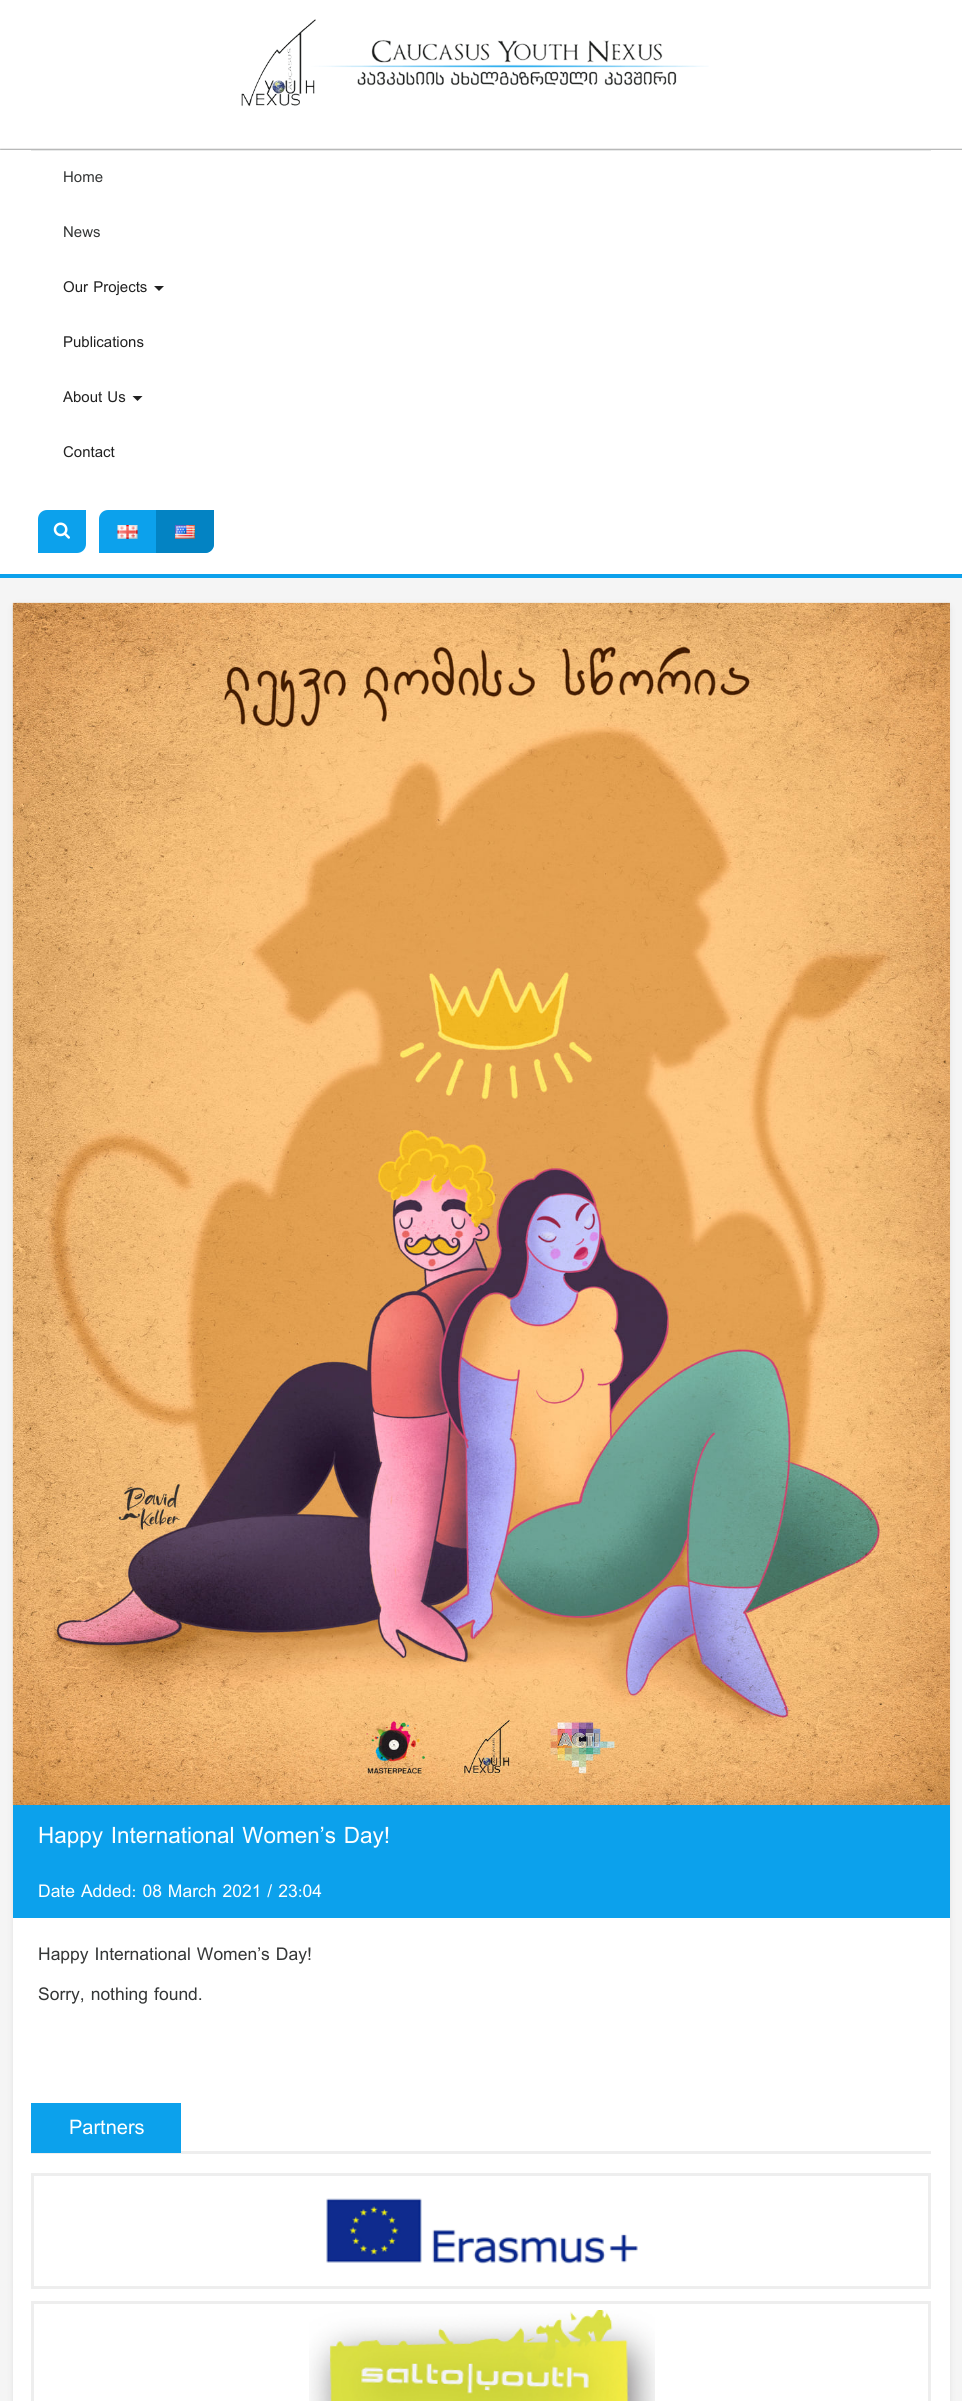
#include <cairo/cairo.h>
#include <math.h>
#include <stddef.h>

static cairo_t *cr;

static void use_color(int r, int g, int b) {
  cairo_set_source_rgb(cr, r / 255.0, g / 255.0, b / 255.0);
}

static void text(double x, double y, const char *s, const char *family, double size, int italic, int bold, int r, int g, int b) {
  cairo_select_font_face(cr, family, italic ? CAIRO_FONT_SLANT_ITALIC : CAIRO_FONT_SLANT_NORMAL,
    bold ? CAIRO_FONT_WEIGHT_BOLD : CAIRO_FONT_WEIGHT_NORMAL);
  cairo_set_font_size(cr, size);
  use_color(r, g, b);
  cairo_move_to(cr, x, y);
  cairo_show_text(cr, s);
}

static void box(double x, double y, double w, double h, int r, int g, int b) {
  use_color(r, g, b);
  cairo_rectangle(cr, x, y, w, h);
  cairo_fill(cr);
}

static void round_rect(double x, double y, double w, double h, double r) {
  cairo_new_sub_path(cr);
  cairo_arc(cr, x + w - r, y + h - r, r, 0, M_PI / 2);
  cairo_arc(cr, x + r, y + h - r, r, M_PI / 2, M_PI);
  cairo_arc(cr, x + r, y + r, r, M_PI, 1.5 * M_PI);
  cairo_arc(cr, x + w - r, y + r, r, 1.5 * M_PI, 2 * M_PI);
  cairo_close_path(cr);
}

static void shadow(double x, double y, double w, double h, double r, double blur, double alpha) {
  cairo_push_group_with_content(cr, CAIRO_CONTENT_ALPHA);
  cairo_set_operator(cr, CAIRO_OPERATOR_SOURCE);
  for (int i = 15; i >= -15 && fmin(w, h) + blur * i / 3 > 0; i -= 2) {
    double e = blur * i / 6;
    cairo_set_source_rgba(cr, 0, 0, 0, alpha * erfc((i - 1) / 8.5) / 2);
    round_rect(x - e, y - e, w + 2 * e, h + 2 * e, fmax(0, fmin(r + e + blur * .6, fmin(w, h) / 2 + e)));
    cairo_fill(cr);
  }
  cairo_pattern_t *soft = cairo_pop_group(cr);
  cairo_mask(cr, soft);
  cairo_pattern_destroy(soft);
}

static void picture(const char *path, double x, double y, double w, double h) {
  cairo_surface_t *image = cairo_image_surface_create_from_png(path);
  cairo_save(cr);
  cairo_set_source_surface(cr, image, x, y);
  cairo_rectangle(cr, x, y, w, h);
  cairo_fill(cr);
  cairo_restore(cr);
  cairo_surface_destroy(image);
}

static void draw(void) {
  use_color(255, 255, 255);
  cairo_paint(cr);
  picture("img_01.png", 241, 19, 468, 88);
  cairo_save(cr);
  cairo_rectangle(cr, 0, 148, 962, 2);
  cairo_clip(cr);
  use_color(24, 26, 25);
  shadow(0, 149, 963, 427, 0, 0.5, 0.35);
  cairo_restore(cr);
  box(0, 574, 962, 4, 12, 161, 236);
  box(31, 150, 900, 1, 232, 233, 233);
  use_color(33, 33, 33);
  cairo_new_path(cr);
  cairo_move_to(cr, 154, 286);
  cairo_line_to(cr, 164, 286);
  cairo_line_to(cr, 159, 291);
  cairo_close_path(cr);
  cairo_fill(cr);
  cairo_new_path(cr);
  cairo_move_to(cr, 132.5, 396);
  cairo_line_to(cr, 142.5, 396);
  cairo_line_to(cr, 137.5, 401);
  cairo_close_path(cr);
  cairo_fill(cr);
  use_color(12, 161, 236);
  cairo_new_path(cr);
  cairo_move_to(cr, 47, 510);
  cairo_line_to(cr, 86, 510);
  cairo_line_to(cr, 86, 544);
  cairo_curve_to(cr, 86, 549, 82, 553, 77, 553);
  cairo_line_to(cr, 38, 553);
  cairo_line_to(cr, 38, 519);
  cairo_curve_to(cr, 38, 514, 42, 510, 47, 510);
  cairo_close_path(cr);
  cairo_fill(cr);
  picture("img_02.png", 53, 522, 17, 17);
  cairo_new_path(cr);
  cairo_move_to(cr, 108, 510);
  cairo_line_to(cr, 214, 510);
  cairo_line_to(cr, 214, 544);
  cairo_curve_to(cr, 214, 549, 210, 553, 205, 553);
  cairo_line_to(cr, 99, 553);
  cairo_line_to(cr, 99, 519);
  cairo_curve_to(cr, 99, 514, 103, 510, 108, 510);
  cairo_close_path(cr);
  cairo_fill(cr);
  picture("img_03.png", 117, 525, 21, 14);
  use_color(3, 131, 195);
  cairo_new_path(cr);
  cairo_move_to(cr, 156, 510);
  cairo_line_to(cr, 214, 510);
  cairo_line_to(cr, 214, 544);
  cairo_curve_to(cr, 214, 549, 210, 553, 205, 553);
  cairo_line_to(cr, 156, 553);
  cairo_close_path(cr);
  cairo_fill(cr);
  picture("img_04.png", 175, 525, 20, 14);
  box(0, 578, 962, 1823, 245, 245, 245);
  use_color(204, 204, 204);
  shadow(13, 605, 937, 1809, 4, 3, 0.5);
  box(13, 1918, 937, 483, 255, 255, 255);
  picture("img_05.png", 12, 602, 938, 1203);
  box(13, 1805, 937, 113, 12, 161, 236);
  box(31, 2151, 900, 3, 238, 238, 238);
  box(31, 2103, 150, 50, 12, 161, 236);
  cairo_rectangle(cr, 32.5, 2174.5, 897, 113);
  use_color(238, 238, 238);
  cairo_set_line_width(cr, 3);
  cairo_stroke(cr);
  picture("img_06.png", 326, 2198, 312, 66);
  cairo_rectangle(cr, 32.5, 2302.5, 897, 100);
  cairo_stroke(cr);
  picture("img_07.png", 309, 2310, 346, 91);
  text(63, 182, "Home", "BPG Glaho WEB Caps", 15, 0, 0, 53, 55, 55);
  text(63, 237, "News", "BPG Glaho WEB Caps", 15, 0, 0, 53, 55, 55);
  text(63, 292, "Our Projects", "BPG Glaho WEB Caps", 15, 0, 0, 33, 33, 33);
  text(63, 347, "Publications", "BPG Glaho WEB Caps", 15, 0, 0, 33, 33, 33);
  text(63, 402, "About Us", "BPG Glaho WEB Caps", 15, 0, 0, 33, 33, 33);
  text(63, 457, "Contact", "BPG Glaho WEB Caps", 15, 0, 0, 33, 33, 33);
  text(38, 1843, "Happy International Women’s Day!", "BPG Glaho WEB Caps", 22.5, 0, 0, 255, 255, 255);
  text(38, 1897, "Date Added: 08 March 2021 / 23:04", "BPG Glaho WEB Caps", 17.5, 0, 0, 255, 255, 255);
  text(38, 1960, "Happy International Women’s Day!", "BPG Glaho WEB", 17.5, 0, 0, 53, 55, 55);
  text(38, 2000, "Sorry, nothing found.", "BPG Glaho WEB", 17.5, 0, 0, 53, 55, 55);
  text(69, 2134, "Partners", "BPG Glaho WEB Caps", 20, 0, 0, 255, 255, 255);
}

int main(void) {
  cairo_surface_t *surface = cairo_image_surface_create(CAIRO_FORMAT_RGB24, 962, 2401);
  cr = cairo_create(surface);
  cairo_font_options_t *options = cairo_font_options_create();
  cairo_font_options_set_hint_metrics(options, CAIRO_HINT_METRICS_OFF);
  cairo_font_options_set_hint_style(options, CAIRO_HINT_STYLE_NONE);
  cairo_set_font_options(cr, options);
  cairo_set_miter_limit(cr, 4);
  draw();
  cairo_surface_write_to_png(surface, "out.png");
  cairo_font_options_destroy(options);
  cairo_destroy(cr);
  cairo_surface_destroy(surface);
  return 0;
}
